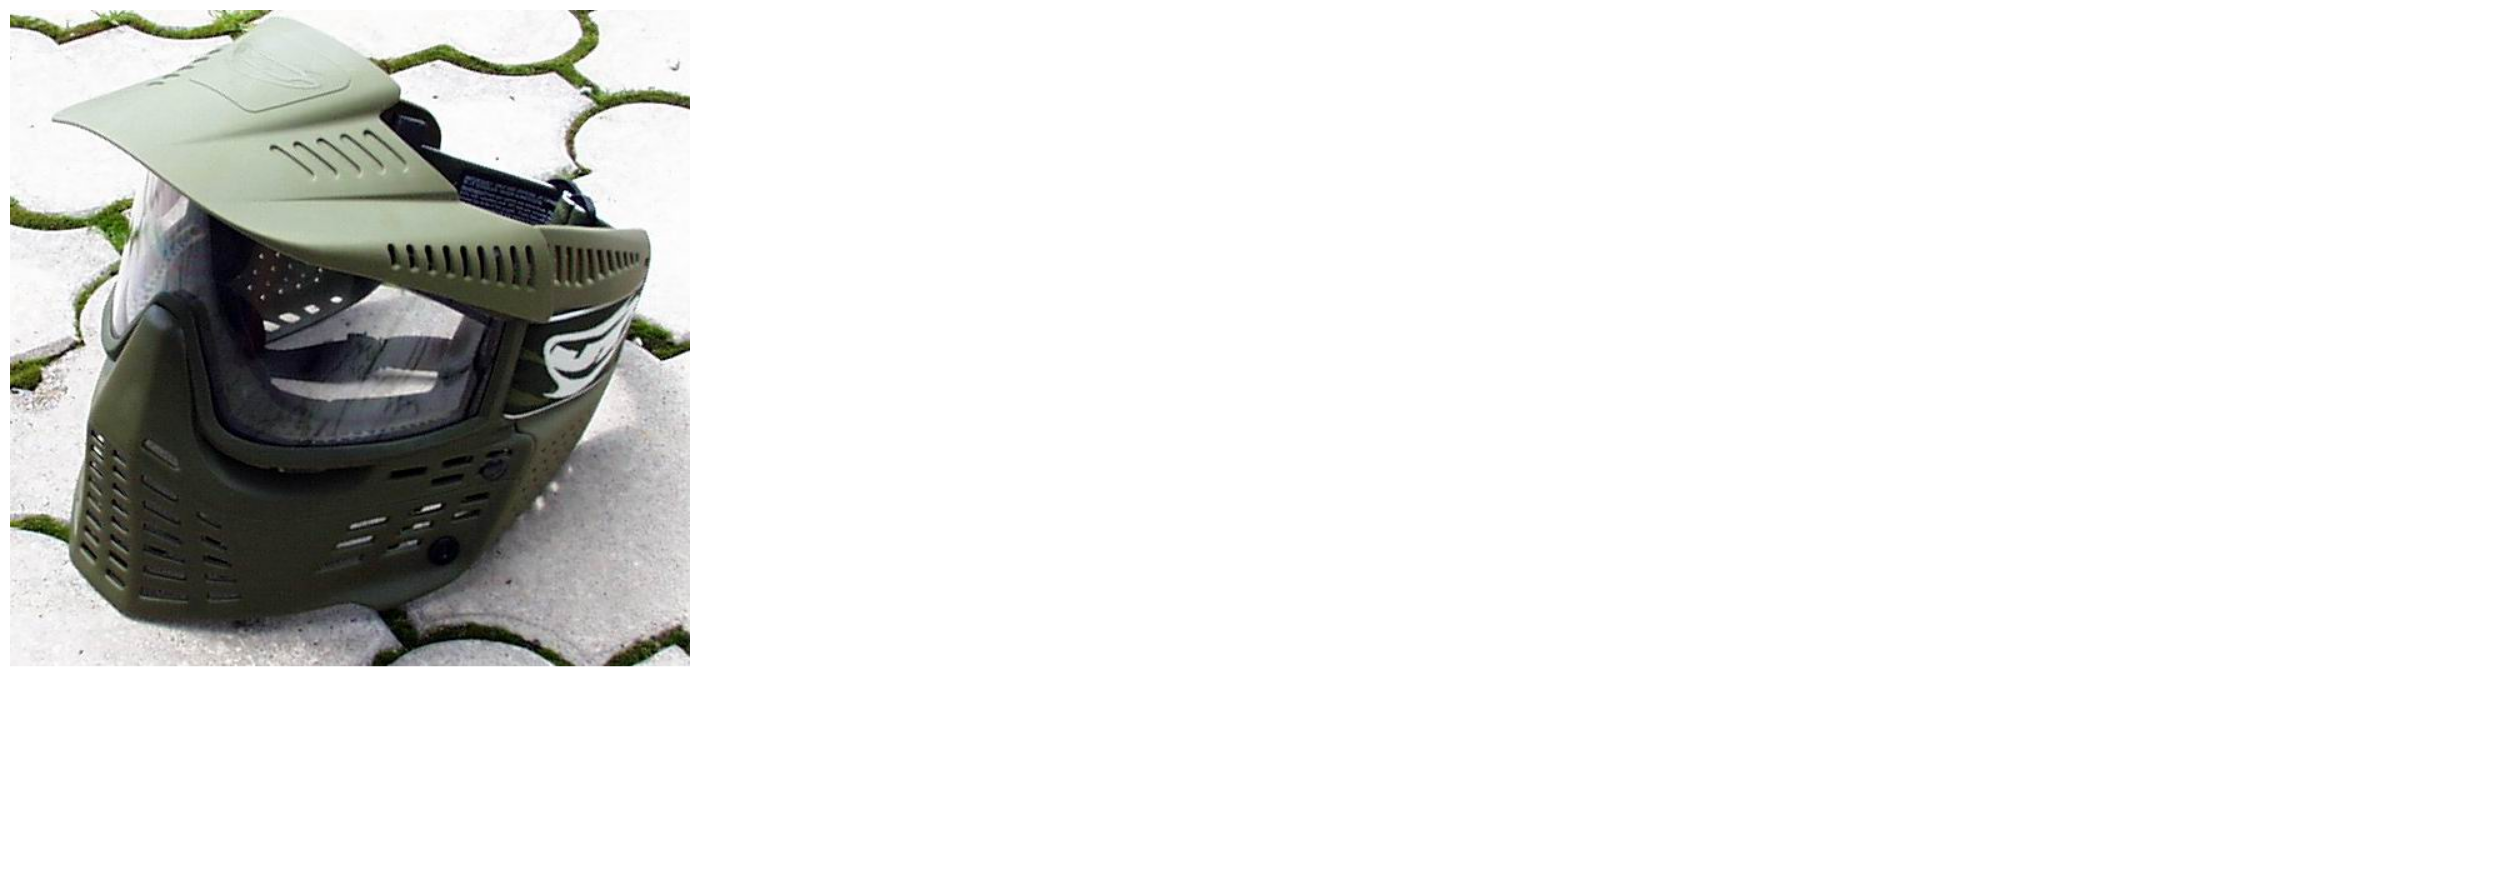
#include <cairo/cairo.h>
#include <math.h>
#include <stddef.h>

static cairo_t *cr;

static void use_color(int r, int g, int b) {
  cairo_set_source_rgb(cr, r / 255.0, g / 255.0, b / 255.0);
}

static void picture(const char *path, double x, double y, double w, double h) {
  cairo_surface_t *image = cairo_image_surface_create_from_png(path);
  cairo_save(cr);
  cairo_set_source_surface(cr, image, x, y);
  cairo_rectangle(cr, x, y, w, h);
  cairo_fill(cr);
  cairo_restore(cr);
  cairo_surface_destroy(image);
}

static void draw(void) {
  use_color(255, 255, 255);
  cairo_paint(cr);
  picture("img_01.png", 10, 10, 680, 657);
}

int main(void) {
  cairo_surface_t *surface = cairo_image_surface_create(CAIRO_FORMAT_RGB24, 2495, 878);
  cr = cairo_create(surface);
  cairo_font_options_t *options = cairo_font_options_create();
  cairo_font_options_set_hint_metrics(options, CAIRO_HINT_METRICS_OFF);
  cairo_font_options_set_hint_style(options, CAIRO_HINT_STYLE_NONE);
  cairo_set_font_options(cr, options);
  cairo_set_miter_limit(cr, 4);
  draw();
  cairo_surface_write_to_png(surface, "out.png");
  cairo_font_options_destroy(options);
  cairo_destroy(cr);
  cairo_surface_destroy(surface);
  return 0;
}
